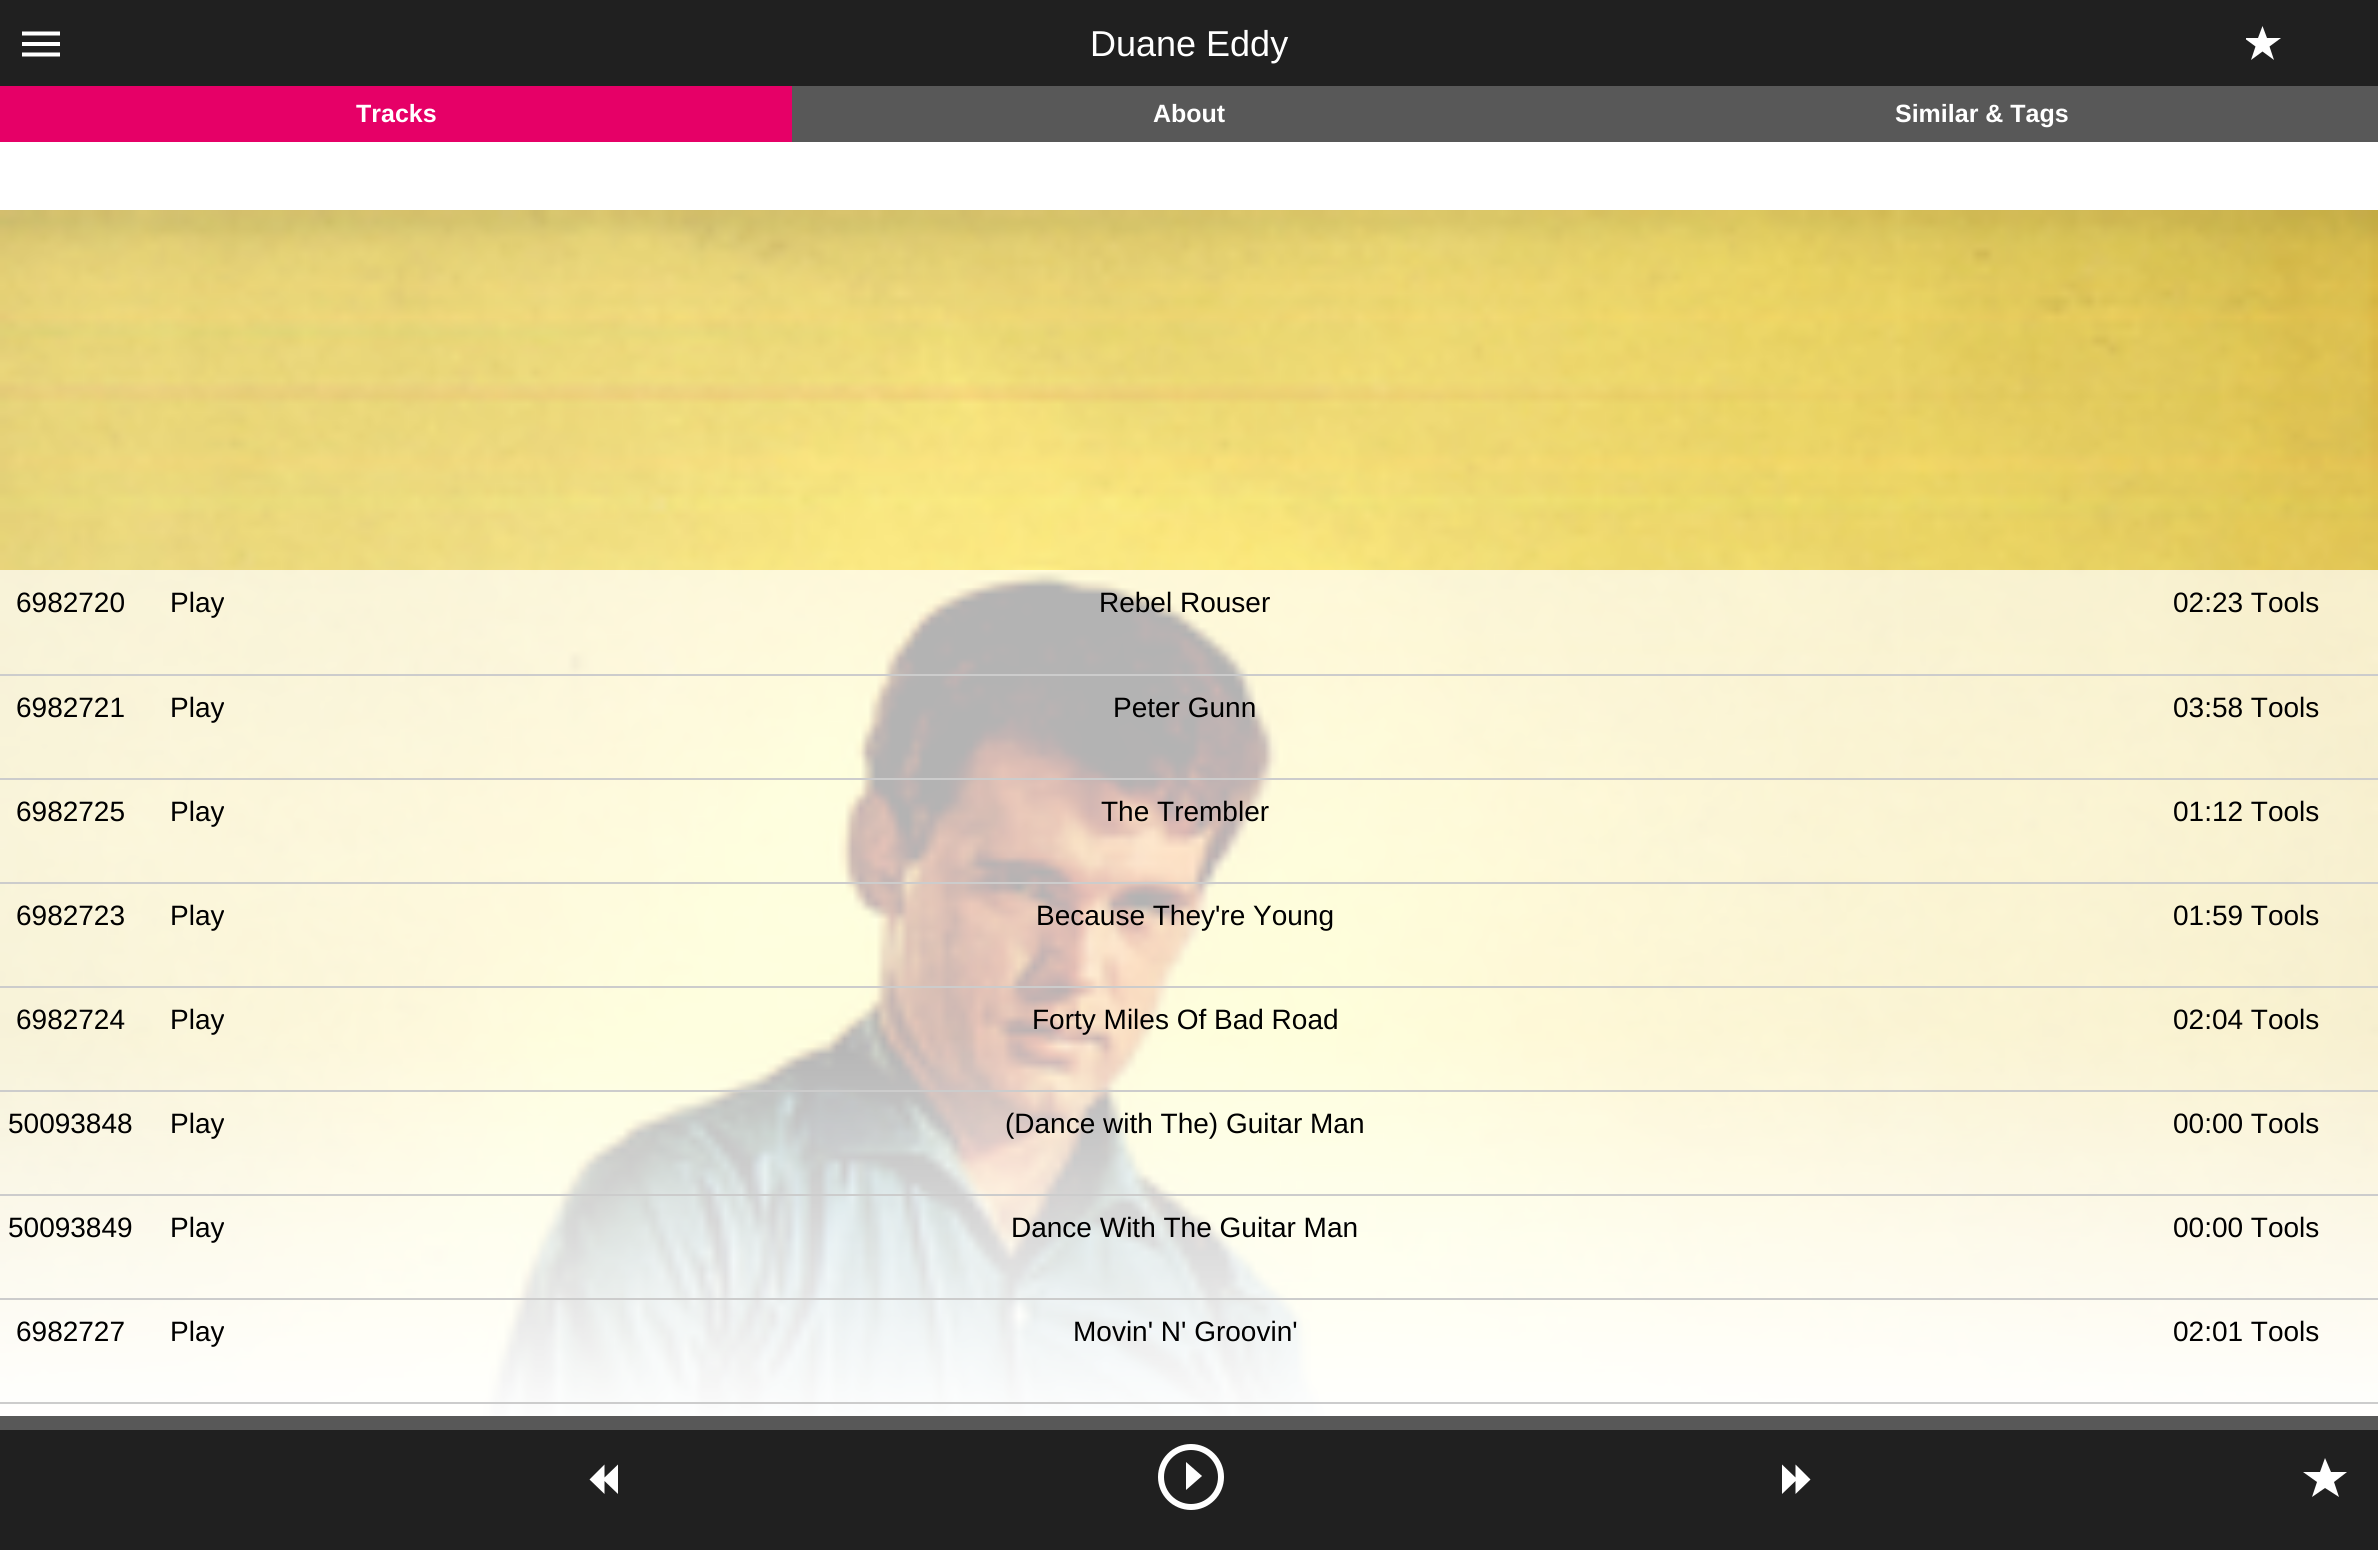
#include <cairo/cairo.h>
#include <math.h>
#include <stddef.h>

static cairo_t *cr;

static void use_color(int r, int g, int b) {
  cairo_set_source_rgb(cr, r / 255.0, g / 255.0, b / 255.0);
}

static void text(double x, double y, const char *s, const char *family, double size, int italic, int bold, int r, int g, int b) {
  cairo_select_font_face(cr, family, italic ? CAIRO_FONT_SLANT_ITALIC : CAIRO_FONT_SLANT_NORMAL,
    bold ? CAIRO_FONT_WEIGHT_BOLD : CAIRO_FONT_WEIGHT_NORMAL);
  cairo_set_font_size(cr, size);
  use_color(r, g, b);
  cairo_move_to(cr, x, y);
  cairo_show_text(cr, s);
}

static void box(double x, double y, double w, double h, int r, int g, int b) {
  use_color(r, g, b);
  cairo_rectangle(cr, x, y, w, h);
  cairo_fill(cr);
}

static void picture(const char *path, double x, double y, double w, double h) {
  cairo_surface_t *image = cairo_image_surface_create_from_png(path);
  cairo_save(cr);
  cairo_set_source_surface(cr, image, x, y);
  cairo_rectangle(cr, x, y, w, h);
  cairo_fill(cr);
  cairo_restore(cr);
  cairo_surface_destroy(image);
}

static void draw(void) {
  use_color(32, 32, 32);
  cairo_paint(cr);
  box(0, 142, 2378, 68, 255, 255, 255);
  cairo_new_path(cr);
  cairo_move_to(cr, 22, 56.5);
  cairo_line_to(cr, 60, 56.5);
  cairo_line_to(cr, 60, 52.5);
  cairo_line_to(cr, 22, 52.5);
  cairo_close_path(cr);
  cairo_move_to(cr, 22, 46);
  cairo_line_to(cr, 60, 46);
  cairo_line_to(cr, 60, 42);
  cairo_line_to(cr, 22, 42);
  cairo_close_path(cr);
  cairo_move_to(cr, 22, 31.5);
  cairo_line_to(cr, 22, 35.5);
  cairo_line_to(cr, 60, 35.5);
  cairo_line_to(cr, 60, 31.5);
  cairo_close_path(cr);
  cairo_fill(cr);
  cairo_save(cr);
  cairo_rectangle(cr, 2246, 22, 36, 48);
  cairo_clip(cr);
  cairo_new_path(cr);
  cairo_move_to(cr, 2244, 38);
  cairo_line_to(cr, 2258, 38);
  cairo_line_to(cr, 2262.5, 26);
  cairo_line_to(cr, 2267, 38);
  cairo_line_to(cr, 2281, 38);
  cairo_line_to(cr, 2269.5, 46.5);
  cairo_line_to(cr, 2274, 60);
  cairo_line_to(cr, 2262.5, 51.5);
  cairo_line_to(cr, 2251, 60);
  cairo_line_to(cr, 2255.5, 46.5);
  cairo_close_path(cr);
  cairo_move_to(cr, 2251, 60);
  cairo_line_to(cr, 2251, 60);
  cairo_close_path(cr);
  cairo_fill(cr);
  cairo_restore(cr);
  box(792, 86, 1586, 56, 88, 88, 88);
  box(0, 86, 792, 56, 230, 0, 103);
  picture("img_01.png", 0, 210, 2378, 1206);
  picture("img_02.png", 0, 1040, 2378, 376);
  cairo_set_source_rgba(cr, 1, 1, 1, 0.7);
  cairo_rectangle(cr, 0, 570, 2378, 846);
  cairo_fill(cr);
  box(0, 674, 2378, 2, 204, 204, 204);
  box(0, 778, 2378, 2, 204, 204, 204);
  box(0, 882, 2378, 2, 204, 204, 204);
  box(0, 986, 2378, 2, 204, 204, 204);
  box(0, 1090, 2378, 2, 204, 204, 204);
  box(0, 1194, 2378, 2, 204, 204, 204);
  box(0, 1298, 2378, 2, 204, 204, 204);
  box(0, 1402, 2378, 2, 204, 204, 204);
  box(0, 1416, 2378, 14, 88, 88, 88);
  use_color(255, 255, 255);
  cairo_new_path(cr);
  cairo_move_to(cr, 589.5, 1479.5);
  cairo_line_to(cr, 604.5, 1464.5);
  cairo_line_to(cr, 604.5, 1477.5);
  cairo_line_to(cr, 618, 1464.5);
  cairo_line_to(cr, 618, 1494);
  cairo_line_to(cr, 604.5, 1481);
  cairo_line_to(cr, 604.5, 1494);
  cairo_close_path(cr);
  cairo_fill(cr);
  cairo_arc(cr, 1191, 1477, 30, 0, 2 * M_PI);
  cairo_set_line_width(cr, 6);
  cairo_stroke(cr);
  cairo_new_path(cr);
  cairo_move_to(cr, 1186, 1490);
  cairo_line_to(cr, 1186, 1462);
  cairo_line_to(cr, 1202, 1476);
  cairo_close_path(cr);
  cairo_fill(cr);
  cairo_new_path(cr);
  cairo_move_to(cr, 1782, 1494);
  cairo_line_to(cr, 1782, 1464.5);
  cairo_line_to(cr, 1795.5, 1477.5);
  cairo_line_to(cr, 1795.5, 1464.5);
  cairo_line_to(cr, 1810.5, 1479.5);
  cairo_line_to(cr, 1795.5, 1494);
  cairo_line_to(cr, 1795.5, 1481);
  cairo_close_path(cr);
  cairo_fill(cr);
  cairo_new_path(cr);
  cairo_move_to(cr, 2303, 1472);
  cairo_line_to(cr, 2320, 1472);
  cairo_line_to(cr, 2325, 1458);
  cairo_line_to(cr, 2331, 1472);
  cairo_line_to(cr, 2347, 1472);
  cairo_line_to(cr, 2334, 1482);
  cairo_line_to(cr, 2339, 1497);
  cairo_line_to(cr, 2325, 1488);
  cairo_line_to(cr, 2312, 1497);
  cairo_line_to(cr, 2317, 1482);
  cairo_close_path(cr);
  cairo_move_to(cr, 2312, 1498);
  cairo_line_to(cr, 2312, 1498);
  cairo_close_path(cr);
  cairo_fill(cr);
  text(1090, 56, "Duane Eddy", "Liberation Sans", 36, 0, 0, 255, 255, 255);
  text(356, 122, "Tracks", "Liberation Sans", 25, 0, 1, 255, 255, 255);
  text(1153, 122, "About", "Liberation Sans", 25, 0, 1, 255, 255, 255);
  text(1895, 122, "Similar & Tags", "Liberation Sans", 25, 0, 1, 255, 255, 255);
  text(16, 612, "6982720", "Liberation Sans", 28, 0, 0, 0, 0, 0);
  text(170, 612, "Play", "Liberation Sans", 28, 0, 0, 0, 0, 0);
  text(1099, 612, "Rebel Rouser", "Liberation Sans", 28, 0, 0, 0, 0, 0);
  text(2173, 612, "02:23 Tools", "Liberation Sans", 28, 0, 0, 0, 0, 0);
  text(16, 717, "6982721", "Liberation Sans", 28, 0, 0, 0, 0, 0);
  text(170, 717, "Play", "Liberation Sans", 28, 0, 0, 0, 0, 0);
  text(1113, 717, "Peter Gunn", "Liberation Sans", 28, 0, 0, 0, 0, 0);
  text(2173, 717, "03:58 Tools", "Liberation Sans", 28, 0, 0, 0, 0, 0);
  text(16, 821, "6982725", "Liberation Sans", 28, 0, 0, 0, 0, 0);
  text(170, 821, "Play", "Liberation Sans", 28, 0, 0, 0, 0, 0);
  text(1101, 821, "The Trembler", "Liberation Sans", 28, 0, 0, 0, 0, 0);
  text(2173, 821, "01:12 Tools", "Liberation Sans", 28, 0, 0, 0, 0, 0);
  text(16, 925, "6982723", "Liberation Sans", 28, 0, 0, 0, 0, 0);
  text(170, 925, "Play", "Liberation Sans", 28, 0, 0, 0, 0, 0);
  text(1036, 925, "Because They're Young", "Liberation Sans", 28, 0, 0, 0, 0, 0);
  text(2173, 925, "01:59 Tools", "Liberation Sans", 28, 0, 0, 0, 0, 0);
  text(16, 1029, "6982724", "Liberation Sans", 28, 0, 0, 0, 0, 0);
  text(170, 1029, "Play", "Liberation Sans", 28, 0, 0, 0, 0, 0);
  text(1032, 1029, "Forty Miles Of Bad Road", "Liberation Sans", 28, 0, 0, 0, 0, 0);
  text(2173, 1029, "02:04 Tools", "Liberation Sans", 28, 0, 0, 0, 0, 0);
  text(8, 1133, "50093848", "Liberation Sans", 28, 0, 0, 0, 0, 0);
  text(170, 1133, "Play", "Liberation Sans", 28, 0, 0, 0, 0, 0);
  text(1005, 1133, "(Dance with The) Guitar Man", "Liberation Sans", 28, 0, 0, 0, 0, 0);
  text(2173, 1133, "00:00 Tools", "Liberation Sans", 28, 0, 0, 0, 0, 0);
  text(8, 1237, "50093849", "Liberation Sans", 28, 0, 0, 0, 0, 0);
  text(170, 1237, "Play", "Liberation Sans", 28, 0, 0, 0, 0, 0);
  text(1011, 1237, "Dance With The Guitar Man", "Liberation Sans", 28, 0, 0, 0, 0, 0);
  text(2173, 1237, "00:00 Tools", "Liberation Sans", 28, 0, 0, 0, 0, 0);
  text(16, 1341, "6982727", "Liberation Sans", 28, 0, 0, 0, 0, 0);
  text(170, 1341, "Play", "Liberation Sans", 28, 0, 0, 0, 0, 0);
  text(1073, 1341, "Movin' N' Groovin'", "Liberation Sans", 28, 0, 0, 0, 0, 0);
  text(2173, 1341, "02:01 Tools", "Liberation Sans", 28, 0, 0, 0, 0, 0);
}

int main(void) {
  cairo_surface_t *surface = cairo_image_surface_create(CAIRO_FORMAT_RGB24, 2378, 1550);
  cr = cairo_create(surface);
  cairo_font_options_t *options = cairo_font_options_create();
  cairo_font_options_set_hint_metrics(options, CAIRO_HINT_METRICS_OFF);
  cairo_font_options_set_hint_style(options, CAIRO_HINT_STYLE_NONE);
  cairo_set_font_options(cr, options);
  cairo_set_miter_limit(cr, 4);
  draw();
  cairo_surface_write_to_png(surface, "out.png");
  cairo_font_options_destroy(options);
  cairo_destroy(cr);
  cairo_surface_destroy(surface);
  return 0;
}
